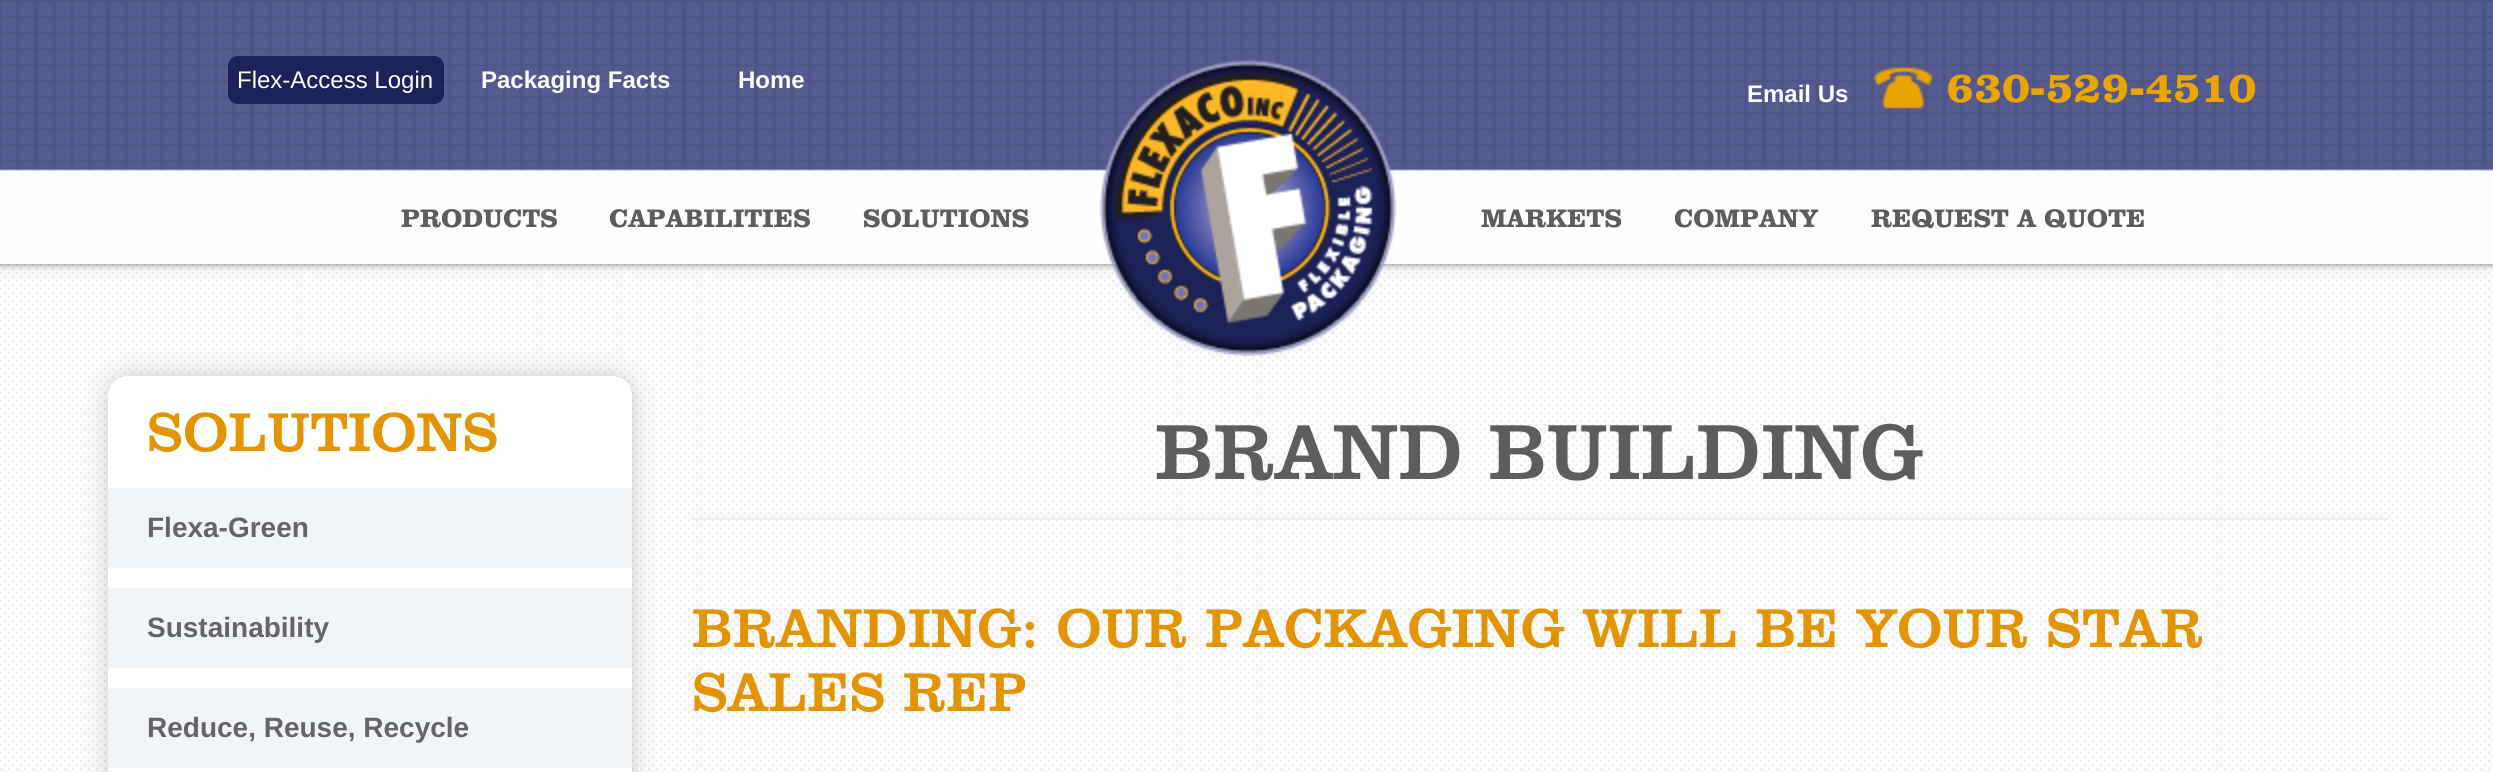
#include <cairo/cairo.h>
#include <math.h>
#include <stddef.h>

static cairo_t *cr;

static void use_color(int r, int g, int b) {
  cairo_set_source_rgb(cr, r / 255.0, g / 255.0, b / 255.0);
}

static void text(double x, double y, const char *s, const char *family, double size, int italic, int bold, int r, int g, int b) {
  cairo_select_font_face(cr, family, italic ? CAIRO_FONT_SLANT_ITALIC : CAIRO_FONT_SLANT_NORMAL,
    bold ? CAIRO_FONT_WEIGHT_BOLD : CAIRO_FONT_WEIGHT_NORMAL);
  cairo_set_font_size(cr, size);
  use_color(r, g, b);
  cairo_move_to(cr, x, y);
  cairo_show_text(cr, s);
}

static void box(double x, double y, double w, double h, int r, int g, int b) {
  use_color(r, g, b);
  cairo_rectangle(cr, x, y, w, h);
  cairo_fill(cr);
}

static void round_rect(double x, double y, double w, double h, double r) {
  cairo_new_sub_path(cr);
  cairo_arc(cr, x + w - r, y + h - r, r, 0, M_PI / 2);
  cairo_arc(cr, x + r, y + h - r, r, M_PI / 2, M_PI);
  cairo_arc(cr, x + r, y + r, r, M_PI, 1.5 * M_PI);
  cairo_arc(cr, x + w - r, y + r, r, 1.5 * M_PI, 2 * M_PI);
  cairo_close_path(cr);
}

static void shadow(double x, double y, double w, double h, double r, double blur, double alpha) {
  cairo_push_group_with_content(cr, CAIRO_CONTENT_ALPHA);
  cairo_set_operator(cr, CAIRO_OPERATOR_SOURCE);
  for (int i = 15; i >= -15 && fmin(w, h) + blur * i / 3 > 0; i -= 2) {
    double e = blur * i / 6;
    cairo_set_source_rgba(cr, 0, 0, 0, alpha * erfc((i - 1) / 8.5) / 2);
    round_rect(x - e, y - e, w + 2 * e, h + 2 * e, fmax(0, fmin(r + e + blur * .6, fmin(w, h) / 2 + e)));
    cairo_fill(cr);
  }
  cairo_pattern_t *soft = cairo_pop_group(cr);
  cairo_mask(cr, soft);
  cairo_pattern_destroy(soft);
}

static void picture(const char *path, double x, double y, double w, double h) {
  cairo_surface_t *image = cairo_image_surface_create_from_png(path);
  cairo_save(cr);
  cairo_set_source_surface(cr, image, x, y);
  cairo_rectangle(cr, x, y, w, h);
  cairo_fill(cr);
  cairo_restore(cr);
  cairo_surface_destroy(image);
}

static void draw(void) {
  use_color(255, 255, 255);
  cairo_paint(cr);
  picture("img_01.png", 0, 264, 2493, 508);
  use_color(115, 115, 115);
  shadow(0, 0, 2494, 264, 0, 4, 1);
  box(0, 171, 2493, 93, 255, 254, 255);
  picture("img_02.png", 0, 0, 2493, 171);
  picture("img_03.png", 1099, 59, 298, 297);
  use_color(28, 33, 87);
  round_rect(228, 56, 216, 48, 10);
  cairo_fill(cr);
  picture("img_04.png", 1873, 67, 60, 42);
  use_color(0, 0, 0);
  shadow(108, 376, 524, 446, 20, 10, 0.2);
  use_color(255, 255, 255);
  round_rect(108, 376, 524, 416, 20);
  cairo_fill(cr);
  box(108, 488, 524, 80, 242, 245, 247);
  box(108, 588, 524, 80, 242, 245, 247);
  box(108, 688, 524, 80, 242, 245, 247);
  box(692, 518, 1696, 2, 238, 238, 238);
  text(237, 88, "Flex-Access Login", "Liberation Sans", 24, 0, 0, 255, 255, 255);
  text(481, 88, "Packaging Facts", "Liberation Sans", 24, 0, 1, 255, 255, 255);
  text(738, 88, "Home", "Liberation Sans", 24, 0, 1, 255, 255, 255);
  text(1747, 102, "Email Us", "Liberation Sans", 24, 0, 1, 255, 255, 255);
  text(1946, 102, "630-529-4510", "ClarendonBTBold", 44, 0, 1, 234, 165, 1);
  text(401, 227, "PRODUCTS", "ClarendonBTBold", 26, 0, 1, 93, 93, 94);
  text(609, 227, "CAPABILITIES", "ClarendonBTBold", 26, 0, 1, 93, 93, 94);
  text(863, 227, "SOLUTIONS", "ClarendonBTBold", 26, 0, 1, 93, 93, 94);
  text(1481, 227, "MARKETS", "ClarendonBTBold", 26, 0, 1, 93, 93, 94);
  text(1674, 227, "COMPANY", "ClarendonBTBold", 26, 0, 1, 93, 93, 94);
  text(1871, 227, "REQUEST A QUOTE", "ClarendonBTBold", 26, 0, 1, 93, 93, 94);
  text(147, 451, "SOLUTIONS", "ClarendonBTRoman", 56, 0, 0, 226, 148, 2);
  text(147, 537, "Flexa-Green", "Liberation Sans", 28, 0, 1, 100, 100, 105);
  text(147, 637, "Sustainability", "Liberation Sans", 28, 0, 1, 100, 100, 105);
  text(147, 737, "Reduce, Reuse, Recycle", "Liberation Sans", 28, 0, 1, 100, 100, 105);
  text(1155, 479, "BRAND BUILDING", "ClarendonBTRoman", 80, 0, 0, 93, 93, 94);
  text(692, 647, "BRANDING: OUR PACKAGING WILL BE YOUR STAR", "ClarendonBTRoman", 56, 0, 0, 226, 148, 2);
  text(692, 711, "SALES REP", "ClarendonBTRoman", 56, 0, 0, 226, 148, 2);
}

int main(void) {
  cairo_surface_t *surface = cairo_image_surface_create(CAIRO_FORMAT_RGB24, 2493, 772);
  cr = cairo_create(surface);
  cairo_font_options_t *options = cairo_font_options_create();
  cairo_font_options_set_hint_metrics(options, CAIRO_HINT_METRICS_OFF);
  cairo_font_options_set_hint_style(options, CAIRO_HINT_STYLE_NONE);
  cairo_set_font_options(cr, options);
  cairo_set_miter_limit(cr, 4);
  draw();
  cairo_surface_write_to_png(surface, "out.png");
  cairo_font_options_destroy(options);
  cairo_destroy(cr);
  cairo_surface_destroy(surface);
  return 0;
}
